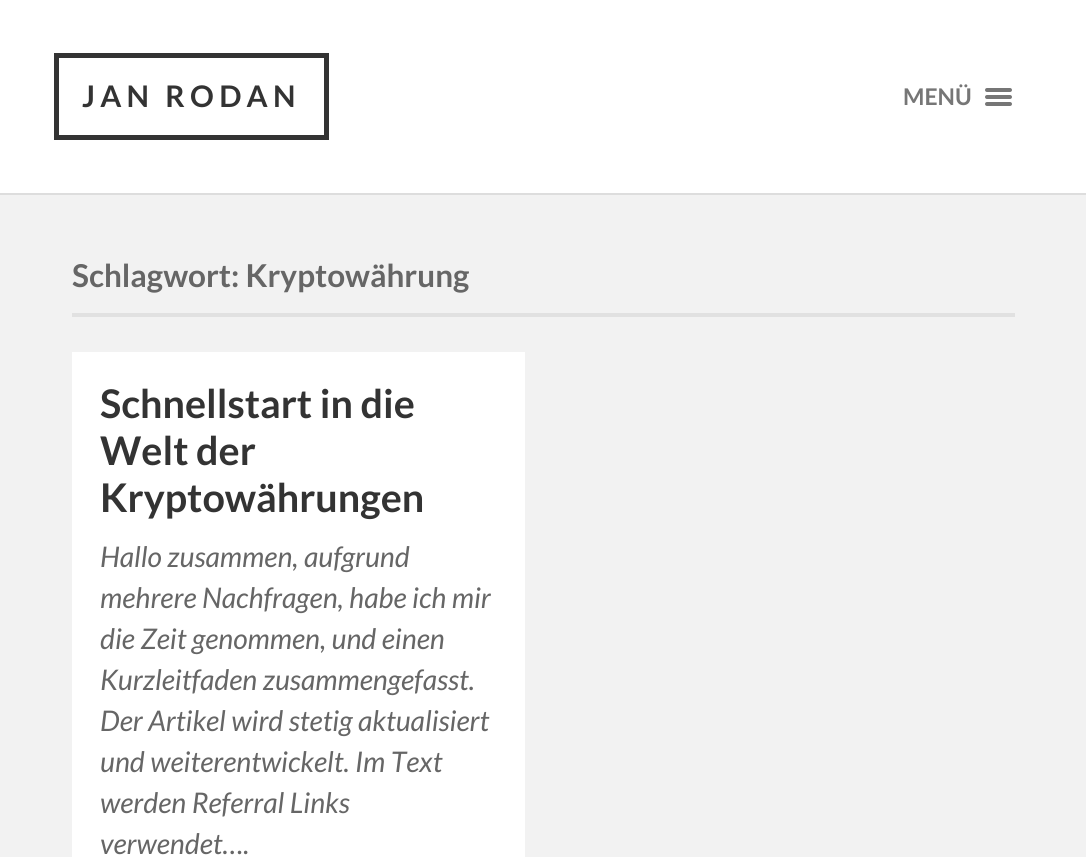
#include <cairo/cairo.h>
#include <math.h>
#include <stddef.h>

static cairo_t *cr;

static void use_color(int r, int g, int b) {
  cairo_set_source_rgb(cr, r / 255.0, g / 255.0, b / 255.0);
}

static void text(double x, double y, const char *s, const char *family, double size, int italic, int bold, int r, int g, int b) {
  cairo_select_font_face(cr, family, italic ? CAIRO_FONT_SLANT_ITALIC : CAIRO_FONT_SLANT_NORMAL,
    bold ? CAIRO_FONT_WEIGHT_BOLD : CAIRO_FONT_WEIGHT_NORMAL);
  cairo_set_font_size(cr, size);
  use_color(r, g, b);
  cairo_move_to(cr, x, y);
  cairo_show_text(cr, s);
}

static void spaced_text(double x, double y, const char *s, double letter, double word) {
  cairo_move_to(cr, x, y);
  while (*s) {
    char ch[5] = {0};
    int n = 0;
    do ch[n++] = *s++; while ((*s & 0xC0) == 0x80);
    cairo_show_text(cr, ch);
    cairo_rel_move_to(cr, letter + word * (*ch == ' '), 0);
  }
}

static void box(double x, double y, double w, double h, int r, int g, int b) {
  use_color(r, g, b);
  cairo_rectangle(cr, x, y, w, h);
  cairo_fill(cr);
}

static void round_rect(double x, double y, double w, double h, double r) {
  cairo_new_sub_path(cr);
  cairo_arc(cr, x + w - r, y + h - r, r, 0, M_PI / 2);
  cairo_arc(cr, x + r, y + h - r, r, M_PI / 2, M_PI);
  cairo_arc(cr, x + r, y + r, r, M_PI, 1.5 * M_PI);
  cairo_arc(cr, x + w - r, y + r, r, 1.5 * M_PI, 2 * M_PI);
  cairo_close_path(cr);
}

static void draw(void) {
  use_color(242, 242, 242);
  cairo_paint(cr);
  box(0, 0, 1086, 193, 255, 255, 255);
  box(0, 193, 1086, 2, 221, 221, 221);
  cairo_rectangle(cr, 56.5, 55.5, 270, 82);
  use_color(51, 51, 51);
  cairo_set_line_width(cr, 5);
  cairo_stroke(cr);
  use_color(118, 118, 118);
  round_rect(985, 88, 27, 4, 2);
  cairo_fill(cr);
  round_rect(985, 95, 27, 4, 2);
  cairo_fill(cr);
  round_rect(985, 102, 27, 4, 2);
  cairo_fill(cr);
  box(72, 313, 943, 4, 225, 225, 225);
  box(72, 352, 453, 505, 255, 255, 255);
  cairo_select_font_face(cr, "Lato", CAIRO_FONT_SLANT_NORMAL, CAIRO_FONT_WEIGHT_BOLD);
  cairo_set_font_size(cr, 29.75);
  use_color(51, 51, 51);
  spaced_text(82, 107, "JAN RODAN", 5.25, 0);
  text(903, 105, "MENÜ", "Lato", 23, 0, 1, 118, 118, 118);
  text(72, 287, "Schlagwort: Kryptowährung", "Lato", 31.5, 0, 1, 102, 102, 102);
  text(100, 418, "Schnellstart in die", "Lato", 39.5, 0, 1, 51, 51, 51);
  text(100, 465, "Welt der", "Lato", 39.5, 0, 1, 51, 51, 51);
  text(100, 512, "Kryptowährungen", "Lato", 39.5, 0, 1, 51, 51, 51);
  text(100, 567, "Hallo zusammen, aufgrund", "Lato", 28.4, 1, 0, 102, 102, 102);
  text(100, 608, "mehrere Nachfragen, habe ich mir", "Lato", 28.4, 1, 0, 102, 102, 102);
  text(100, 649, "die Zeit genommen, und einen", "Lato", 28.4, 1, 0, 102, 102, 102);
  text(100, 690, "Kurzleitfaden zusammengefasst.", "Lato", 28.4, 1, 0, 102, 102, 102);
  text(100, 731, "Der Artikel wird stetig aktualisiert", "Lato", 28.4, 1, 0, 102, 102, 102);
  text(100, 772, "und weiterentwickelt. Im Text", "Lato", 28.4, 1, 0, 102, 102, 102);
  text(100, 813, "werden Referral Links", "Lato", 28.4, 1, 0, 102, 102, 102);
  text(100, 854, "verwendet….", "Lato", 28.4, 1, 0, 102, 102, 102);
}

int main(void) {
  cairo_surface_t *surface = cairo_image_surface_create(CAIRO_FORMAT_RGB24, 1086, 857);
  cr = cairo_create(surface);
  cairo_font_options_t *options = cairo_font_options_create();
  cairo_font_options_set_hint_metrics(options, CAIRO_HINT_METRICS_OFF);
  cairo_font_options_set_hint_style(options, CAIRO_HINT_STYLE_NONE);
  cairo_set_font_options(cr, options);
  cairo_set_miter_limit(cr, 4);
  draw();
  cairo_surface_write_to_png(surface, "out.png");
  cairo_font_options_destroy(options);
  cairo_destroy(cr);
  cairo_surface_destroy(surface);
  return 0;
}
